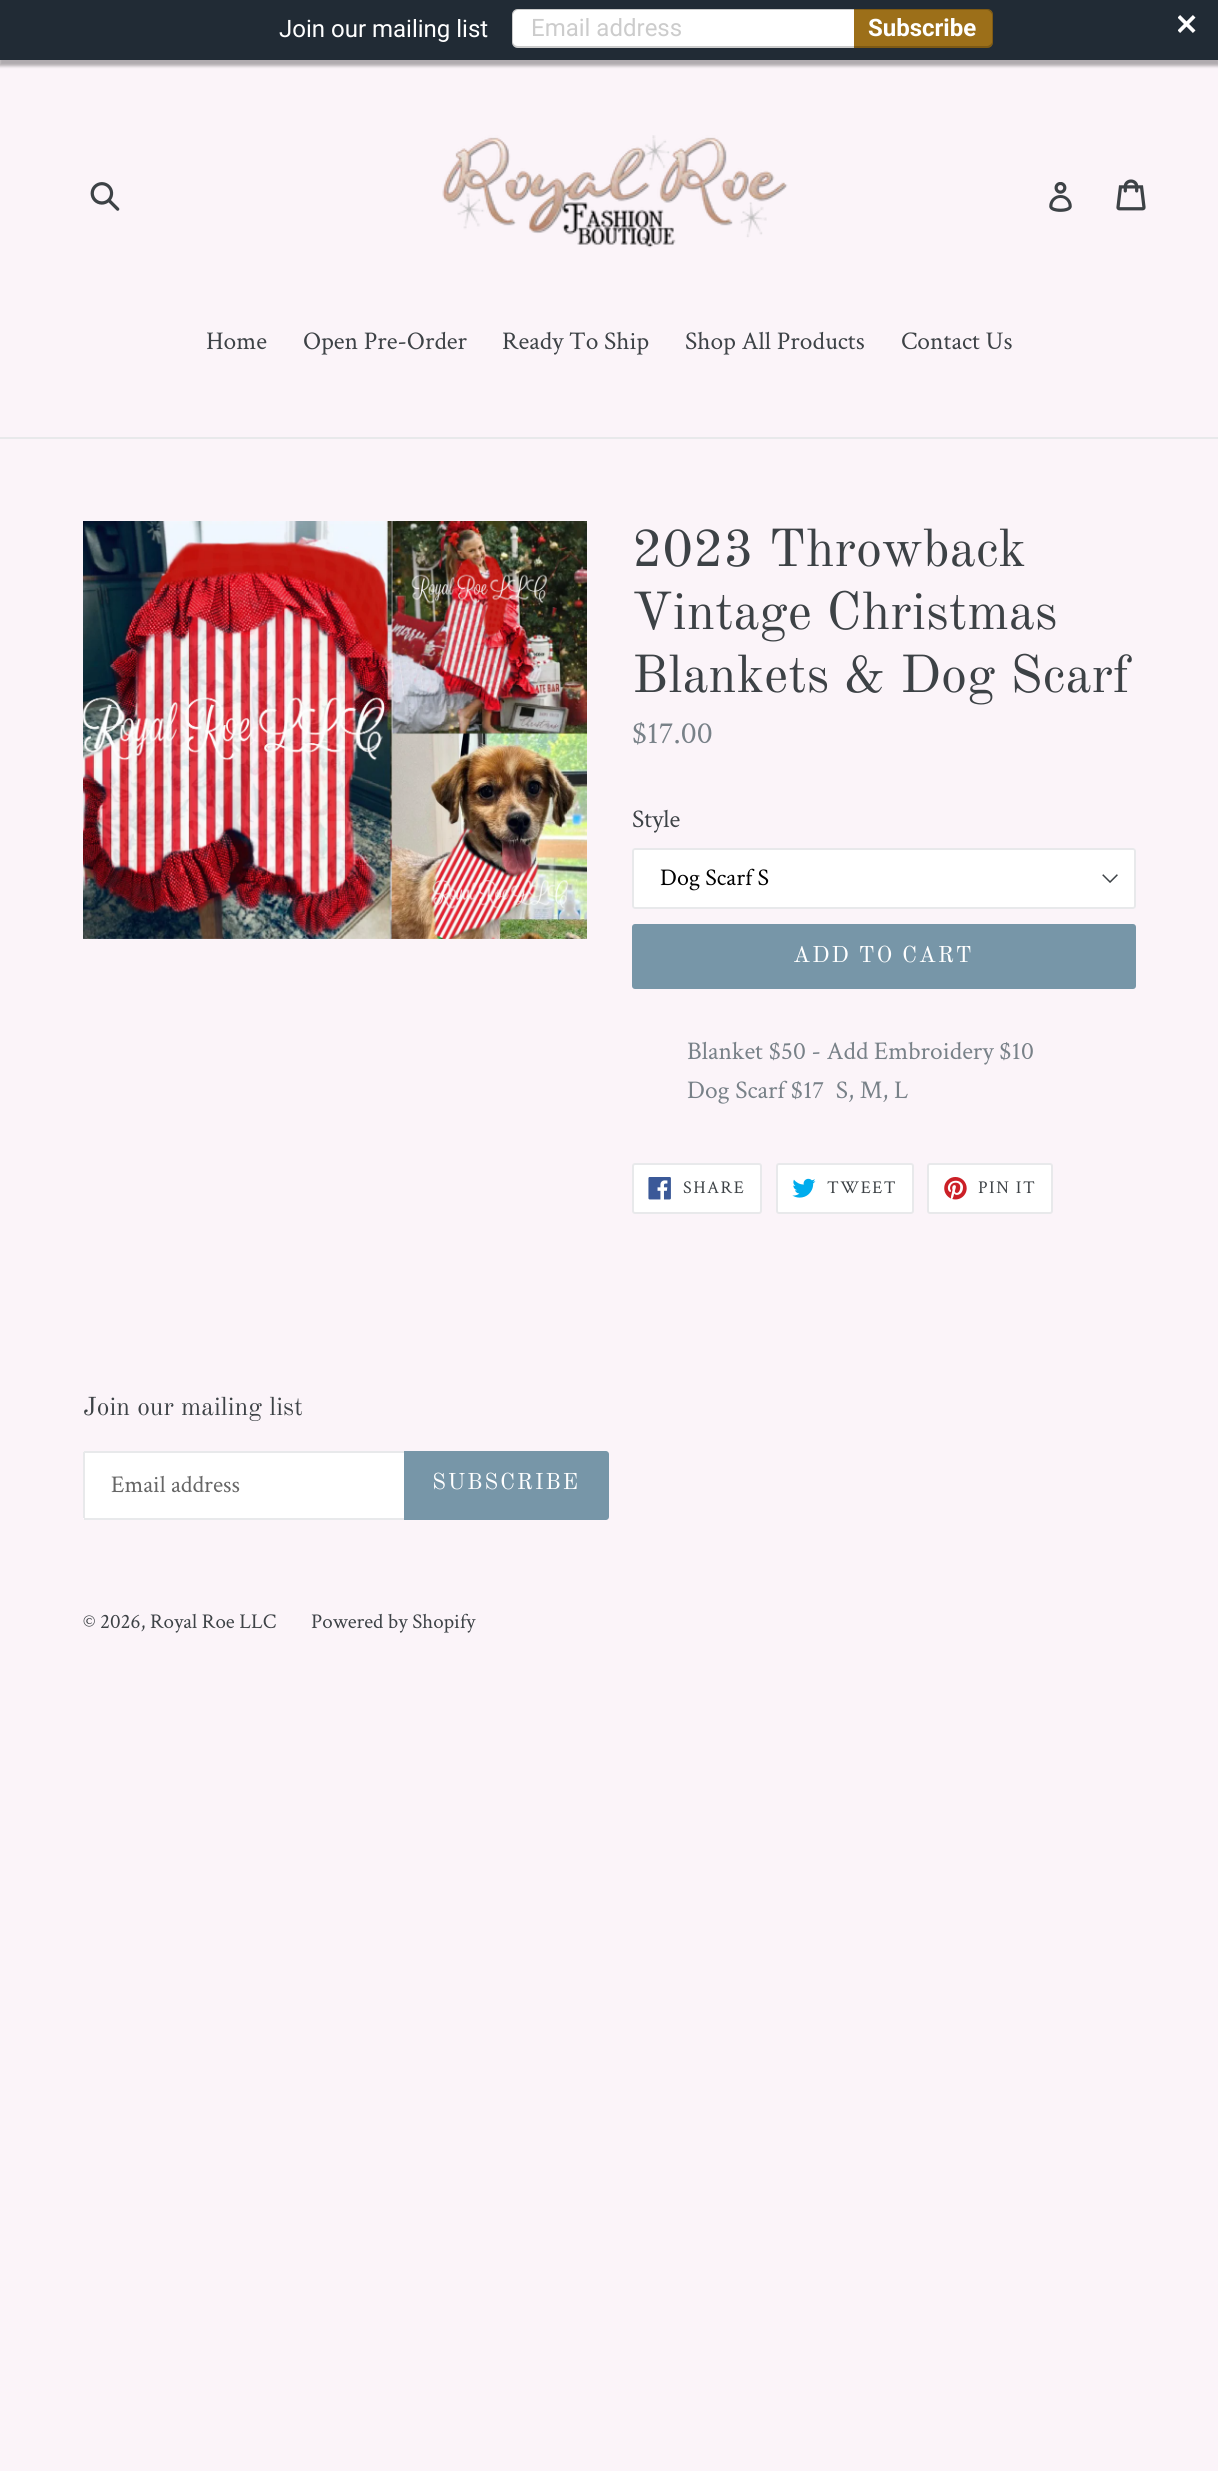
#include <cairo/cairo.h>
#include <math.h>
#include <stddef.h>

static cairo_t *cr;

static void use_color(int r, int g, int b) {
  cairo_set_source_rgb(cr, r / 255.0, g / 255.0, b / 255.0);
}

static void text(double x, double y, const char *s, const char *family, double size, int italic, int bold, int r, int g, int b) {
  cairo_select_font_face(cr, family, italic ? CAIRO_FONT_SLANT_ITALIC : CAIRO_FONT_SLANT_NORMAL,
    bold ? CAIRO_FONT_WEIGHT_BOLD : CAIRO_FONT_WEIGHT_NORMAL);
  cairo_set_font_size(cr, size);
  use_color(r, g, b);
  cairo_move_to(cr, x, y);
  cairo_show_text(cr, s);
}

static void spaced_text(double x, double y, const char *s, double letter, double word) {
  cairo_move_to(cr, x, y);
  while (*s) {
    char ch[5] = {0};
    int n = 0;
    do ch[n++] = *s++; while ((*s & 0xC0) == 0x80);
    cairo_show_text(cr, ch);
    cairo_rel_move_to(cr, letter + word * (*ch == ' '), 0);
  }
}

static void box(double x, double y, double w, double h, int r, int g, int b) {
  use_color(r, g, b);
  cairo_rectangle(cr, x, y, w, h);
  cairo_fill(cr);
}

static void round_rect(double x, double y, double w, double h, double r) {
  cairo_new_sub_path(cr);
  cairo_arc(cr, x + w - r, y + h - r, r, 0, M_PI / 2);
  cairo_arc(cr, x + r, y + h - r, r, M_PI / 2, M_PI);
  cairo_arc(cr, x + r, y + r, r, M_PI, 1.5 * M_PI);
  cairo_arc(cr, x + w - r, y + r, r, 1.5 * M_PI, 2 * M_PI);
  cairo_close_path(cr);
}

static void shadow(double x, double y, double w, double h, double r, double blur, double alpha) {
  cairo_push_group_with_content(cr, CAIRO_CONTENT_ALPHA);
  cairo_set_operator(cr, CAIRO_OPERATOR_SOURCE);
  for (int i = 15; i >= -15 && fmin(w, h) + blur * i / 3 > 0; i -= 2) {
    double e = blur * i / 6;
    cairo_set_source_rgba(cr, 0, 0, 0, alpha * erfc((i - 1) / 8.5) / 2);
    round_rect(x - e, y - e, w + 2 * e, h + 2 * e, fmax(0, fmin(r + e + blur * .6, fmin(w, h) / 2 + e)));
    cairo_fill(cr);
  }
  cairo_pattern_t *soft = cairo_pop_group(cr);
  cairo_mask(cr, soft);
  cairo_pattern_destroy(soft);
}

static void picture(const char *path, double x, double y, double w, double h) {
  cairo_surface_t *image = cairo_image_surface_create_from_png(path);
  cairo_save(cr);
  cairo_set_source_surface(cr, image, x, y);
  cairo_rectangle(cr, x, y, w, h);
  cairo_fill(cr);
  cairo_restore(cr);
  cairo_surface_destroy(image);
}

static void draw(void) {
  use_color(251, 244, 249);
  cairo_paint(cr);
  use_color(0, 0, 0);
  shadow(-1, 3, 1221, 63, 0, 1.5, 0.3);
  box(0, 0, 1218, 60, 33, 43, 53);
  use_color(255, 255, 255);
  cairo_new_path(cr);
  cairo_move_to(cr, 518, 9);
  cairo_line_to(cr, 854, 9);
  cairo_line_to(cr, 854, 48);
  cairo_line_to(cr, 518, 48);
  cairo_curve_to(cr, 514.5, 48, 512, 45.5, 512, 42);
  cairo_line_to(cr, 512, 15);
  cairo_curve_to(cr, 512, 11.5, 514.5, 9, 518, 9);
  cairo_close_path(cr);
  cairo_fill(cr);
  cairo_set_source_rgba(cr, 0, 0, 0, 0.2);
  cairo_set_fill_rule(cr, CAIRO_FILL_RULE_EVEN_ODD);
  cairo_new_path(cr);
  cairo_move_to(cr, 518, 9);
  cairo_line_to(cr, 854, 9);
  cairo_line_to(cr, 854, 48);
  cairo_line_to(cr, 518, 48);
  cairo_curve_to(cr, 514, 48, 512, 45, 512, 42);
  cairo_line_to(cr, 512, 15);
  cairo_curve_to(cr, 512, 12, 514, 9, 518, 9);
  cairo_close_path(cr);
  cairo_move_to(cr, 518, 10);
  cairo_line_to(cr, 854, 10);
  cairo_line_to(cr, 854, 46);
  cairo_line_to(cr, 518, 46);
  cairo_curve_to(cr, 515, 46, 513, 44, 513, 42);
  cairo_line_to(cr, 513, 15);
  cairo_curve_to(cr, 513, 13, 515, 10, 518, 10);
  cairo_close_path(cr);
  cairo_fill(cr);
  use_color(156, 111, 25);
  cairo_new_path(cr);
  cairo_move_to(cr, 854, 9);
  cairo_line_to(cr, 987, 9);
  cairo_curve_to(cr, 990.5, 9, 993, 11.5, 993, 15);
  cairo_line_to(cr, 993, 42);
  cairo_curve_to(cr, 993, 45.5, 990.5, 48, 987, 48);
  cairo_line_to(cr, 854, 48);
  cairo_close_path(cr);
  cairo_fill(cr);
  cairo_set_source_rgba(cr, 0, 0, 0, 0.2);
  cairo_new_path(cr);
  cairo_move_to(cr, 854, 9);
  cairo_line_to(cr, 987, 9);
  cairo_curve_to(cr, 990, 9, 993, 12, 993, 15);
  cairo_line_to(cr, 993, 42);
  cairo_curve_to(cr, 993, 45, 990, 48, 987, 48);
  cairo_line_to(cr, 854, 48);
  cairo_close_path(cr);
  cairo_move_to(cr, 854, 10);
  cairo_line_to(cr, 987, 10);
  cairo_curve_to(cr, 989, 10, 992, 13, 992, 15);
  cairo_line_to(cr, 992, 42);
  cairo_curve_to(cr, 992, 44, 989, 46, 987, 46);
  cairo_line_to(cr, 854, 46);
  cairo_close_path(cr);
  cairo_fill(cr);
  picture("img_01.png", 1178, 15, 18, 18);
  picture("img_02.png", 90, 182, 30, 29);
  picture("img_03.png", 442, 135, 346, 113);
  picture("img_04.png", 1049, 182, 23, 30);
  picture("img_05.png", 1116, 179, 30, 32);
  box(0, 437, 1218, 2, 232, 233, 235);
  picture("img_06.png", 83, 521, 504, 418);
  use_color(255, 255, 255);
  round_rect(632, 848, 504, 61, 3);
  cairo_fill(cr);
  picture("img_07.png", 1102, 874, 16, 9);
  round_rect(633, 849, 502, 59, 2);
  use_color(232, 233, 235);
  cairo_stroke(cr);
  use_color(119, 150, 168);
  round_rect(632, 924, 504, 65, 3);
  cairo_fill(cr);
  use_color(255, 255, 255);
  round_rect(633, 1164, 128, 49, 2);
  cairo_fill_preserve(cr);
  use_color(232, 233, 235);
  cairo_stroke(cr);
  picture("img_08.png", 648, 1177, 23, 23);
  use_color(255, 255, 255);
  round_rect(777, 1164, 136, 49, 2);
  cairo_fill_preserve(cr);
  use_color(232, 233, 235);
  cairo_stroke(cr);
  picture("img_09.png", 792, 1178, 24, 20);
  use_color(255, 255, 255);
  round_rect(928, 1164, 124, 49, 2);
  cairo_fill_preserve(cr);
  use_color(232, 233, 235);
  cairo_stroke(cr);
  picture("img_10.png", 944, 1177, 23, 23);
  use_color(255, 255, 255);
  cairo_new_path(cr);
  cairo_move_to(cr, 86, 1451);
  cairo_line_to(cr, 404, 1451);
  cairo_line_to(cr, 404, 1520);
  cairo_line_to(cr, 86, 1520);
  cairo_curve_to(cr, 84.5, 1520, 83, 1518.5, 83, 1517);
  cairo_line_to(cr, 83, 1454);
  cairo_curve_to(cr, 83, 1452.5, 84.5, 1451, 86, 1451);
  cairo_close_path(cr);
  cairo_fill(cr);
  box(84, 1451, 320, 2, 232, 233, 235);
  box(84, 1518, 320, 2, 232, 233, 235);
  box(83, 1452, 2, 66, 232, 233, 235);
  use_color(119, 150, 168);
  cairo_new_path(cr);
  cairo_move_to(cr, 404, 1451);
  cairo_line_to(cr, 606, 1451);
  cairo_curve_to(cr, 607.5, 1451, 609, 1452.5, 609, 1454);
  cairo_line_to(cr, 609, 1517);
  cairo_curve_to(cr, 609, 1518.5, 607.5, 1520, 606, 1520);
  cairo_line_to(cr, 404, 1520);
  cairo_close_path(cr);
  cairo_fill(cr);
  text(279, 37, "Join our mailing list", "Roboto", 24, 0, 0, 255, 255, 255);
  text(531, 36, "Email address", "Roboto", 24, 0, 0, 204, 204, 204);
  text(868, 36, "Subscribe", "Roboto", 24, 0, 1, 255, 255, 255);
  text(206, 349, "Home", "Crimson Text", 25.5, 0, 0, 61, 66, 70);
  text(303, 349, "Open Pre-Order", "Crimson Text", 25.5, 0, 0, 61, 66, 70);
  text(502, 349, "Ready To Ship", "Crimson Text", 25.5, 0, 0, 61, 66, 70);
  text(685, 349, "Shop All Products", "Crimson Text", 25.5, 0, 0, 61, 66, 70);
  text(901, 349, "Contact Us", "Crimson Text", 25.5, 0, 0, 61, 66, 70);
  text(632, 566, "2023 Throwback", "Old Standard TT", 52.5, 0, 0, 61, 66, 70);
  text(632, 629, "Vintage Christmas", "Old Standard TT", 52.5, 0, 0, 61, 66, 70);
  text(632, 692, "Blankets & Dog Scarf", "Old Standard TT", 52.5, 0, 0, 61, 66, 70);
  text(632, 743, "$17.00", "Crimson Text", 31.5, 0, 0, 120, 129, 136);
  text(632, 827, "Style", "Crimson Text", 25.5, 0, 0, 61, 66, 70);
  text(660, 885, "Dog Scarf S", "Crimson Text", 24, 0, 0, 0, 0, 0);
  cairo_select_font_face(cr, "Old Standard TT", CAIRO_FONT_SLANT_NORMAL, CAIRO_FONT_WEIGHT_NORMAL);
  cairo_set_font_size(cr, 22.5);
  use_color(255, 255, 255);
  spaced_text(793, 962, "ADD TO CART", 1.75, 0);
  text(687, 1059, "Blanket $50 - Add Embroidery $10", "Crimson Text", 25.5, 0, 0, 120, 129, 136);
  text(687, 1098, "Dog Scarf $17  S, M, L", "Crimson Text", 25.5, 0, 0, 120, 129, 136);
  cairo_set_font_size(cr, 18);
  use_color(61, 66, 70);
  spaced_text(683, 1193, "SHARE", 1.5, 0);
  spaced_text(827, 1193, "TWEET", 1.5, 0);
  spaced_text(978, 1193, "PIN IT", 1.5, 0);
  text(83, 1415, "Join our mailing list", "Old Standard TT", 25.5, 0, 0, 61, 66, 70);
  text(111, 1492, "Email address", "Crimson Text", 24, 0, 0, 102, 102, 102);
  cairo_select_font_face(cr, "Old Standard TT", CAIRO_FONT_SLANT_NORMAL, CAIRO_FONT_WEIGHT_NORMAL);
  cairo_set_font_size(cr, 22.5);
  use_color(255, 255, 255);
  spaced_text(432, 1489, "SUBSCRIBE", 1.75, 0);
  text(83, 1628, "© 2026, Royal Roe LLC", "Crimson Text", 21, 0, 0, 61, 66, 70);
  text(311, 1628, "Powered by Shopify", "Crimson Text", 21, 0, 0, 61, 66, 70);
}

int main(void) {
  cairo_surface_t *surface = cairo_image_surface_create(CAIRO_FORMAT_RGB24, 1218, 2471);
  cr = cairo_create(surface);
  cairo_font_options_t *options = cairo_font_options_create();
  cairo_font_options_set_hint_metrics(options, CAIRO_HINT_METRICS_OFF);
  cairo_font_options_set_hint_style(options, CAIRO_HINT_STYLE_NONE);
  cairo_set_font_options(cr, options);
  cairo_set_miter_limit(cr, 4);
  draw();
  cairo_surface_write_to_png(surface, "out.png");
  cairo_font_options_destroy(options);
  cairo_destroy(cr);
  cairo_surface_destroy(surface);
  return 0;
}
